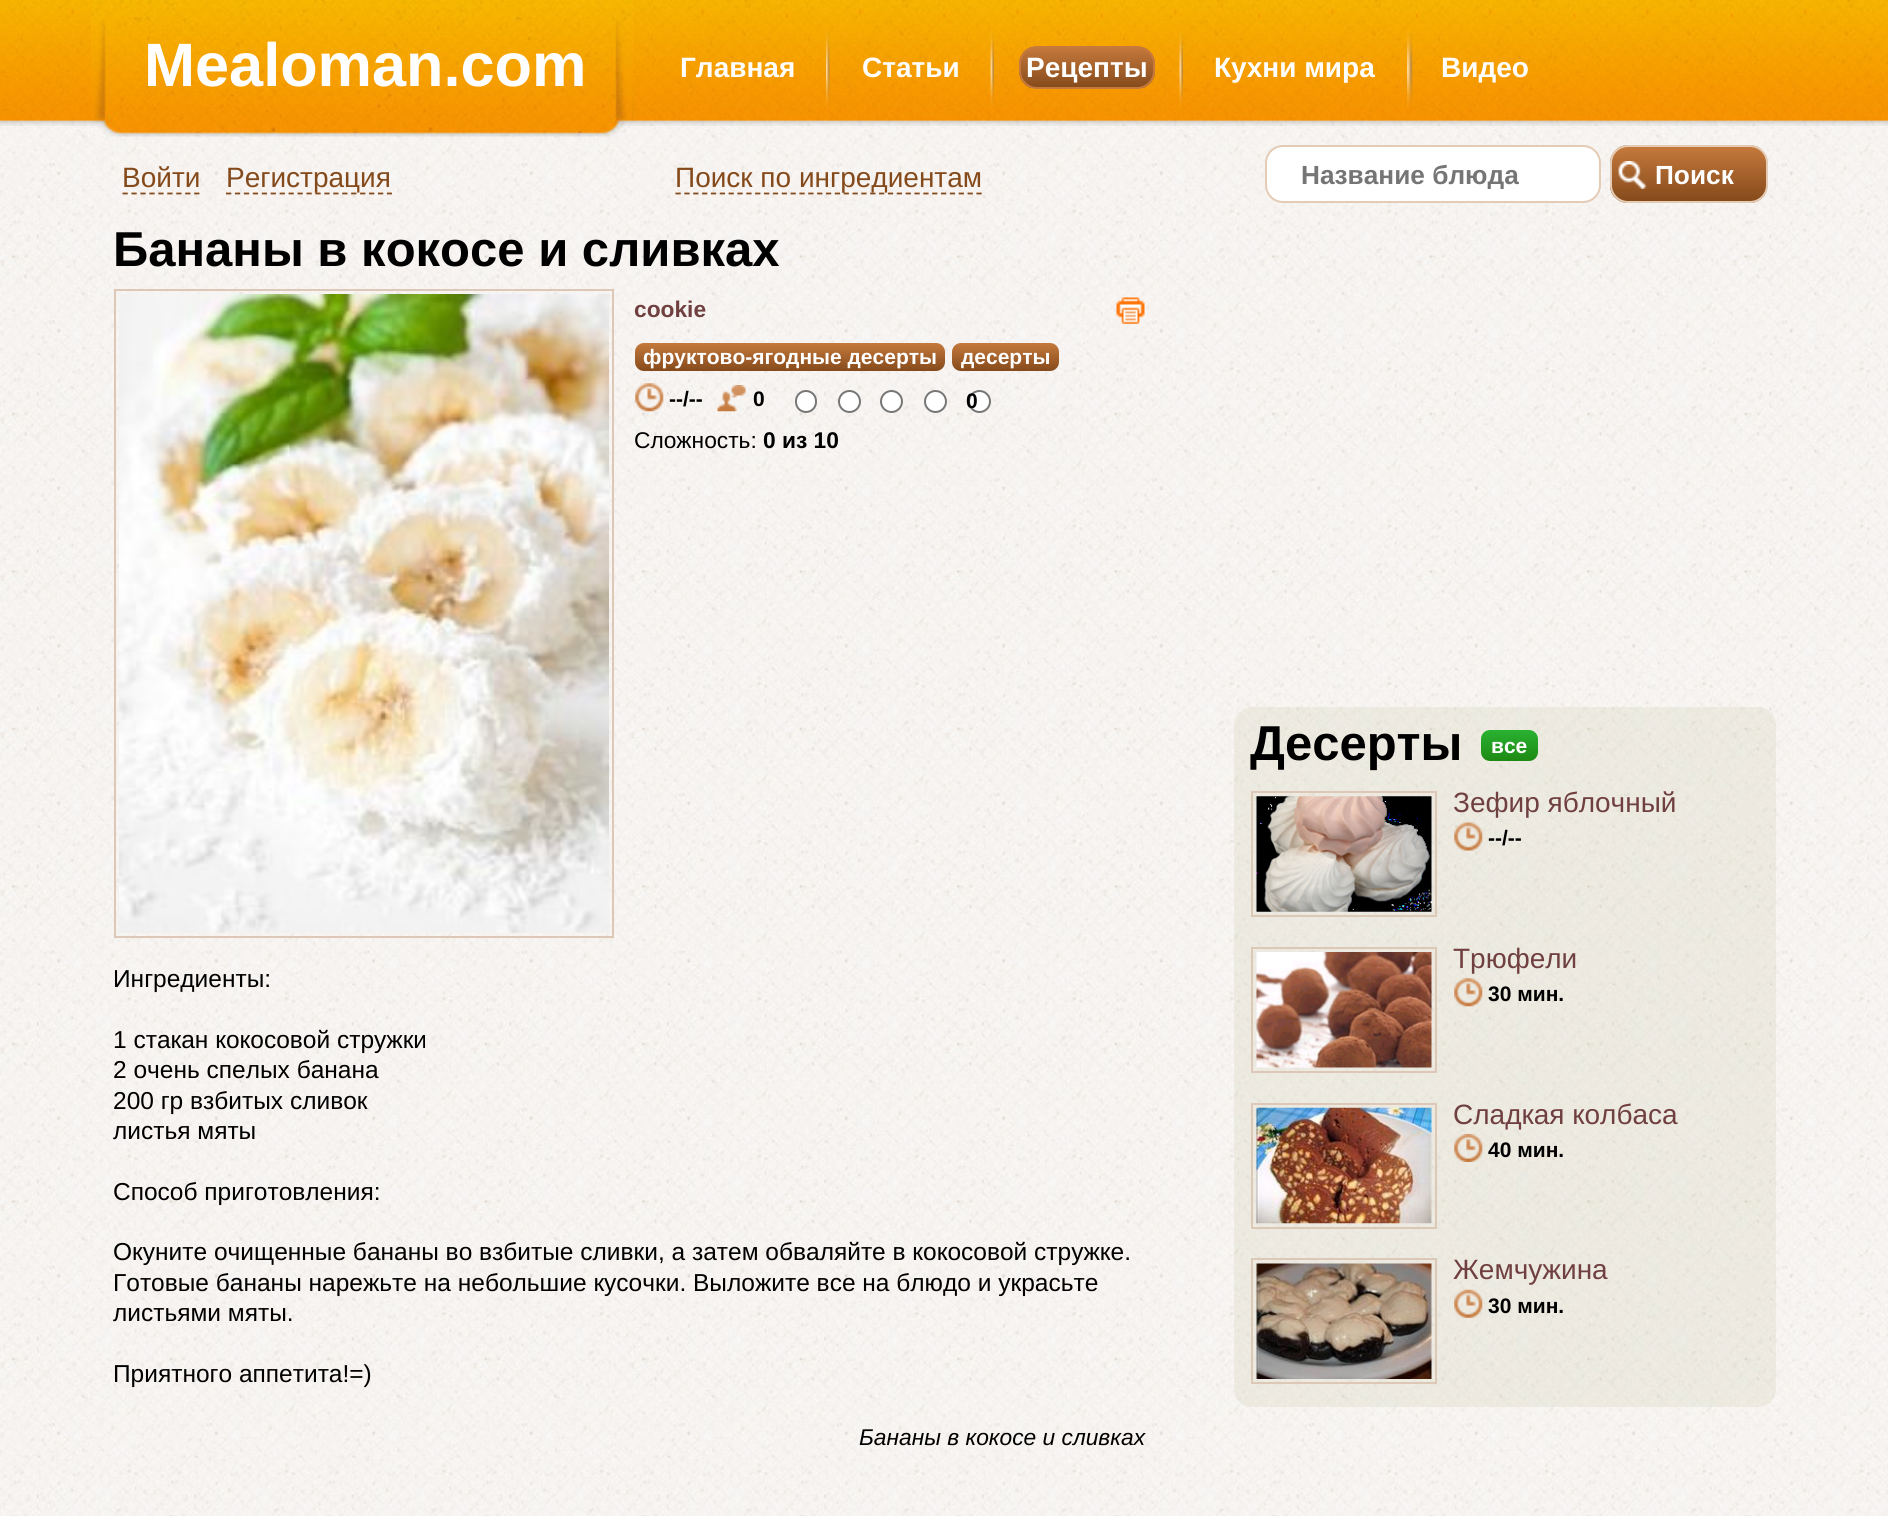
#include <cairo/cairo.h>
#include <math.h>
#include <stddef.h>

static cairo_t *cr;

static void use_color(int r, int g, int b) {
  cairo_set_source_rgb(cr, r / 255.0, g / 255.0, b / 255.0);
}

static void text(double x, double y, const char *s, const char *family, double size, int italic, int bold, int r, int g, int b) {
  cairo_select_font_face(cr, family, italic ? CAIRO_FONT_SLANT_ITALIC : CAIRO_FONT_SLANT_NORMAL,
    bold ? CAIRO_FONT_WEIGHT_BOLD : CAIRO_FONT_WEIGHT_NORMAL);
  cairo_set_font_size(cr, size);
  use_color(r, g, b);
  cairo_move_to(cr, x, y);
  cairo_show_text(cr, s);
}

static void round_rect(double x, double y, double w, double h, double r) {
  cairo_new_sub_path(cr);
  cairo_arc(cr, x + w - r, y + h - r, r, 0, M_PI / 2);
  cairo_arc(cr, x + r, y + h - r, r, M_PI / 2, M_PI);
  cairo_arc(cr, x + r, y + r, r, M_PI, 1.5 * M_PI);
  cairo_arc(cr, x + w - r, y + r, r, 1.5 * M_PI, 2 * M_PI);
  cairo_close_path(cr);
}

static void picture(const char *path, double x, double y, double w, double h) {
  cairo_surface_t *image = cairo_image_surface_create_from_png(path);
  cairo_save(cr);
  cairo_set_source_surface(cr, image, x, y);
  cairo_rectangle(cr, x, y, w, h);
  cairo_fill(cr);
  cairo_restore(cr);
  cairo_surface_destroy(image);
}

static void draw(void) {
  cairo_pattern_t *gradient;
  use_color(255, 255, 255);
  cairo_paint(cr);
  picture("img_01.png", 0, 126, 1888, 1390);
  picture("img_02.png", 0, 0, 1888, 126);
  picture("img_03.png", 91, 0, 543, 137);
  picture("img_04.png", 826, 31, 4, 77);
  picture("img_05.png", 990, 30, 4, 78);
  cairo_save(cr);
  round_rect(1019, 46, 136, 43, 18);
  cairo_clip(cr);
  gradient = cairo_pattern_create_linear(1020, 47, 1020, 88);
  cairo_pattern_add_color_stop_rgba(gradient, 0, 0.773, 0.475, 0.235, 1);
  cairo_pattern_add_color_stop_rgba(gradient, 1, 0.522, 0.29, 0.106, 1);
  cairo_set_source(cr, gradient);
  cairo_pattern_destroy(gradient);
  cairo_rectangle(cr, 1019, 47, 136, 41);
  cairo_fill(cr);
  cairo_restore(cr);
  round_rect(1020, 47, 134, 41, 17);
  use_color(197, 121, 60);
  cairo_stroke(cr);
  picture("img_06.png", 1179, 30, 4, 78);
  picture("img_07.png", 1407, 31, 6, 77);
  cairo_new_path(cr);
  cairo_move_to(cr, 122.5, 193.5);
  cairo_line_to(cr, 199.5, 193.5);
  use_color(133, 74, 27);
  cairo_set_line_width(cr, 1.8);
  cairo_set_dash(cr, (double[]){5.25, 3.71}, 2, 0);
  cairo_stroke(cr);
  cairo_new_path(cr);
  cairo_move_to(cr, 226, 193.5);
  cairo_line_to(cr, 392, 193.5);
  cairo_set_dash(cr, (double[]){5.25, 3.69}, 2, 0);
  cairo_stroke(cr);
  cairo_new_path(cr);
  cairo_move_to(cr, 675.5, 193.5);
  cairo_line_to(cr, 982, 193.5);
  cairo_set_dash(cr, (double[]){5.25, 3.6}, 2, 0);
  cairo_stroke(cr);
  use_color(255, 255, 255);
  round_rect(1266, 146, 334, 56, 17);
  cairo_fill_preserve(cr);
  use_color(228, 203, 182);
  cairo_set_line_width(cr, 2);
  cairo_set_dash(cr, NULL, 0, 0);
  cairo_stroke(cr);
  picture("img_08.png", 1610, 145, 158, 58);
  round_rect(1611, 146, 156, 56, 17);
  cairo_stroke(cr);
  cairo_rectangle(cr, 115, 290, 498, 647);
  use_color(221, 199, 182);
  cairo_stroke(cr);
  picture("img_09.png", 119, 294, 490, 639);
  picture("img_10.png", 1116, 297, 30, 27);
  gradient = cairo_pattern_create_linear(635, 343, 635, 371);
  cairo_pattern_add_color_stop_rgba(gradient, 0, 0.773, 0.475, 0.235, 1);
  cairo_pattern_add_color_stop_rgba(gradient, 1, 0.522, 0.29, 0.106, 1);
  cairo_set_source(cr, gradient);
  cairo_pattern_destroy(gradient);
  round_rect(635, 343, 310, 28, 9);
  cairo_fill(cr);
  gradient = cairo_pattern_create_linear(952, 343, 952, 371);
  cairo_pattern_add_color_stop_rgba(gradient, 0, 0.773, 0.475, 0.235, 1);
  cairo_pattern_add_color_stop_rgba(gradient, 1, 0.522, 0.29, 0.106, 1);
  cairo_set_source(cr, gradient);
  cairo_pattern_destroy(gradient);
  round_rect(952, 343, 107, 28, 9);
  cairo_fill(cr);
  picture("img_11.png", 635, 383, 29, 29);
  picture("img_12.png", 717, 385, 29, 27);
  use_color(255, 255, 255);
  round_rect(796, 391, 20, 21, 10);
  cairo_fill_preserve(cr);
  use_color(118, 118, 118);
  cairo_stroke(cr);
  use_color(255, 255, 255);
  cairo_arc(cr, 849.5, 401.5, 10.5, 0, 2 * M_PI);
  cairo_fill_preserve(cr);
  use_color(118, 118, 118);
  cairo_stroke(cr);
  use_color(255, 255, 255);
  cairo_arc(cr, 891.5, 401.5, 10.5, 0, 2 * M_PI);
  cairo_fill_preserve(cr);
  use_color(118, 118, 118);
  cairo_stroke(cr);
  use_color(255, 255, 255);
  cairo_arc(cr, 935.5, 401.5, 10.5, 0, 2 * M_PI);
  cairo_fill_preserve(cr);
  use_color(118, 118, 118);
  cairo_stroke(cr);
  use_color(255, 255, 255);
  cairo_arc(cr, 979.5, 401.5, 10.5, 0, 2 * M_PI);
  cairo_fill_preserve(cr);
  use_color(118, 118, 118);
  cairo_stroke(cr);
  cairo_set_source_rgba(cr, 0.769, 0.769, 0.627, 0.2);
  round_rect(1234, 707, 542, 700, 18);
  cairo_fill(cr);
  gradient = cairo_pattern_create_linear(1481, 730, 1481, 761);
  cairo_pattern_add_color_stop_rgba(gradient, 0, 0.161, 0.698, 0.2, 1);
  cairo_pattern_add_color_stop_rgba(gradient, 1, 0.114, 0.537, 0.071, 1);
  cairo_set_source(cr, gradient);
  cairo_pattern_destroy(gradient);
  round_rect(1481, 730, 57, 31, 9);
  cairo_fill(cr);
  cairo_rectangle(cr, 1252, 792, 184, 124);
  use_color(221, 199, 182);
  cairo_stroke(cr);
  picture("img_13.png", 1256, 796, 176, 116);
  picture("img_14.png", 1454, 822, 29, 29);
  cairo_rectangle(cr, 1252, 948, 184, 124);
  cairo_stroke(cr);
  picture("img_15.png", 1256, 952, 176, 116);
  picture("img_16.png", 1454, 978, 29, 29);
  cairo_rectangle(cr, 1252, 1104, 184, 124);
  cairo_stroke(cr);
  picture("img_17.png", 1256, 1107, 176, 117);
  picture("img_18.png", 1454, 1134, 29, 28);
  cairo_rectangle(cr, 1252, 1259, 184, 124);
  cairo_stroke(cr);
  picture("img_19.png", 1256, 1263, 176, 116);
  picture("img_20.png", 1454, 1289, 29, 29);
  text(144, 86, "Mealoman.com", "Liberation Sans", 61.25, 0, 1, 255, 255, 255);
  text(680, 77, "Главная", "Liberation Sans", 28, 0, 1, 255, 255, 255);
  text(862, 77, "Статьи", "Liberation Sans", 28, 0, 1, 255, 255, 255);
  text(1026, 77, "Рецепты", "Liberation Sans", 28, 0, 1, 255, 255, 255);
  text(1214, 77, "Кухни мира", "Liberation Sans", 28, 0, 1, 255, 255, 255);
  text(1441, 77, "Видео", "Liberation Sans", 28, 0, 1, 255, 255, 255);
  text(122, 187, "Войти", "Liberation Sans", 28, 0, 0, 133, 74, 27);
  text(226, 187, "Регистрация", "Liberation Sans", 28, 0, 0, 133, 74, 27);
  text(675, 187, "Поиск по ингредиентам", "Liberation Sans", 28, 0, 0, 133, 74, 27);
  cairo_save(cr);
  cairo_rectangle(cr, 1302, 159, 263, 30);
  cairo_clip(cr);
  text(1301, 184, "Название блюда", "Liberation Sans", 26.25, 0, 1, 117, 117, 117);
  cairo_restore(cr);
  text(1655, 184, "Поиск", "Liberation Sans", 26.25, 0, 1, 255, 255, 255);
  text(113, 266, "Бананы в кокосе и сливках", "Liberation Sans", 49, 0, 1, 0, 0, 0);
  text(634, 317, "cookie", "Liberation Sans", 22.75, 0, 1, 112, 64, 64);
  text(643, 364, "фруктово-ягодные десерты", "Liberation Sans", 21, 0, 1, 255, 255, 255);
  text(961, 364, "десерты", "Liberation Sans", 21, 0, 1, 255, 255, 255);
  text(669, 406, "--/--", "Liberation Sans", 21, 0, 1, 0, 0, 0);
  text(753, 406, "0", "Liberation Sans", 21, 0, 1, 0, 0, 0);
  text(966, 408, "0", "Liberation Sans", 21, 0, 1, 0, 0, 0);
  text(634, 448, "Сложность:", "Liberation Sans", 22.75, 0, 0, 0, 0, 0);
  text(763, 448, "0 из 10", "Liberation Sans", 22.75, 0, 1, 0, 0, 0);
  text(113, 987, "Ингредиенты:", "Liberation Sans", 24.5, 0, 0, 0, 0, 0);
  text(113, 1048, "1 стакан кокосовой стружки", "Liberation Sans", 24.5, 0, 0, 0, 0, 0);
  text(113, 1078, "2 очень спелых банана", "Liberation Sans", 24.5, 0, 0, 0, 0, 0);
  text(113, 1109, "200 гр взбитых сливок", "Liberation Sans", 24.5, 0, 0, 0, 0, 0);
  text(113, 1139, "листья мяты", "Liberation Sans", 24.5, 0, 0, 0, 0, 0);
  text(113, 1200, "Способ приготовления:", "Liberation Sans", 24.5, 0, 0, 0, 0, 0);
  text(113, 1260, "Окуните очищенные бананы во взбитые сливки, а затем обваляйте в кокосовой стружке.", "Liberation Sans", 24.5, 0, 0, 0, 0, 0);
  text(113, 1291, "Готовые бананы нарежьте на небольшие кусочки. Выложите все на блюдо и украсьте", "Liberation Sans", 24.5, 0, 0, 0, 0, 0);
  text(113, 1321, "листьями мяты.", "Liberation Sans", 24.5, 0, 0, 0, 0, 0);
  text(113, 1382, "Приятного аппетита!=)", "Liberation Sans", 24.5, 0, 0, 0, 0, 0);
  text(859, 1445, "Бананы в кокосе и сливках", "Liberation Sans", 22.75, 1, 0, 0, 0, 0);
  text(1250, 760, "Десерты", "Liberation Sans", 49, 0, 1, 0, 0, 0);
  text(1491, 753, "все", "Liberation Sans", 21, 0, 1, 255, 255, 255);
  text(1453, 812, "Зефир яблочный", "Liberation Sans", 28, 0, 0, 112, 64, 64);
  text(1488, 845, "--/--", "Liberation Sans", 21, 0, 1, 0, 0, 0);
  text(1453, 968, "Трюфели", "Liberation Sans", 28, 0, 0, 112, 64, 64);
  text(1488, 1001, "30 мин.", "Liberation Sans", 21, 0, 1, 0, 0, 0);
  text(1453, 1124, "Сладкая колбаса", "Liberation Sans", 28, 0, 0, 112, 64, 64);
  text(1488, 1157, "40 мин.", "Liberation Sans", 21, 0, 1, 0, 0, 0);
  text(1453, 1279, "Жемчужина", "Liberation Sans", 28, 0, 0, 112, 64, 64);
  text(1488, 1313, "30 мин.", "Liberation Sans", 21, 0, 1, 0, 0, 0);
}

int main(void) {
  cairo_surface_t *surface = cairo_image_surface_create(CAIRO_FORMAT_RGB24, 1888, 1516);
  cr = cairo_create(surface);
  cairo_font_options_t *options = cairo_font_options_create();
  cairo_font_options_set_hint_metrics(options, CAIRO_HINT_METRICS_OFF);
  cairo_font_options_set_hint_style(options, CAIRO_HINT_STYLE_NONE);
  cairo_set_font_options(cr, options);
  cairo_set_miter_limit(cr, 4);
  draw();
  cairo_surface_write_to_png(surface, "out.png");
  cairo_font_options_destroy(options);
  cairo_destroy(cr);
  cairo_surface_destroy(surface);
  return 0;
}
